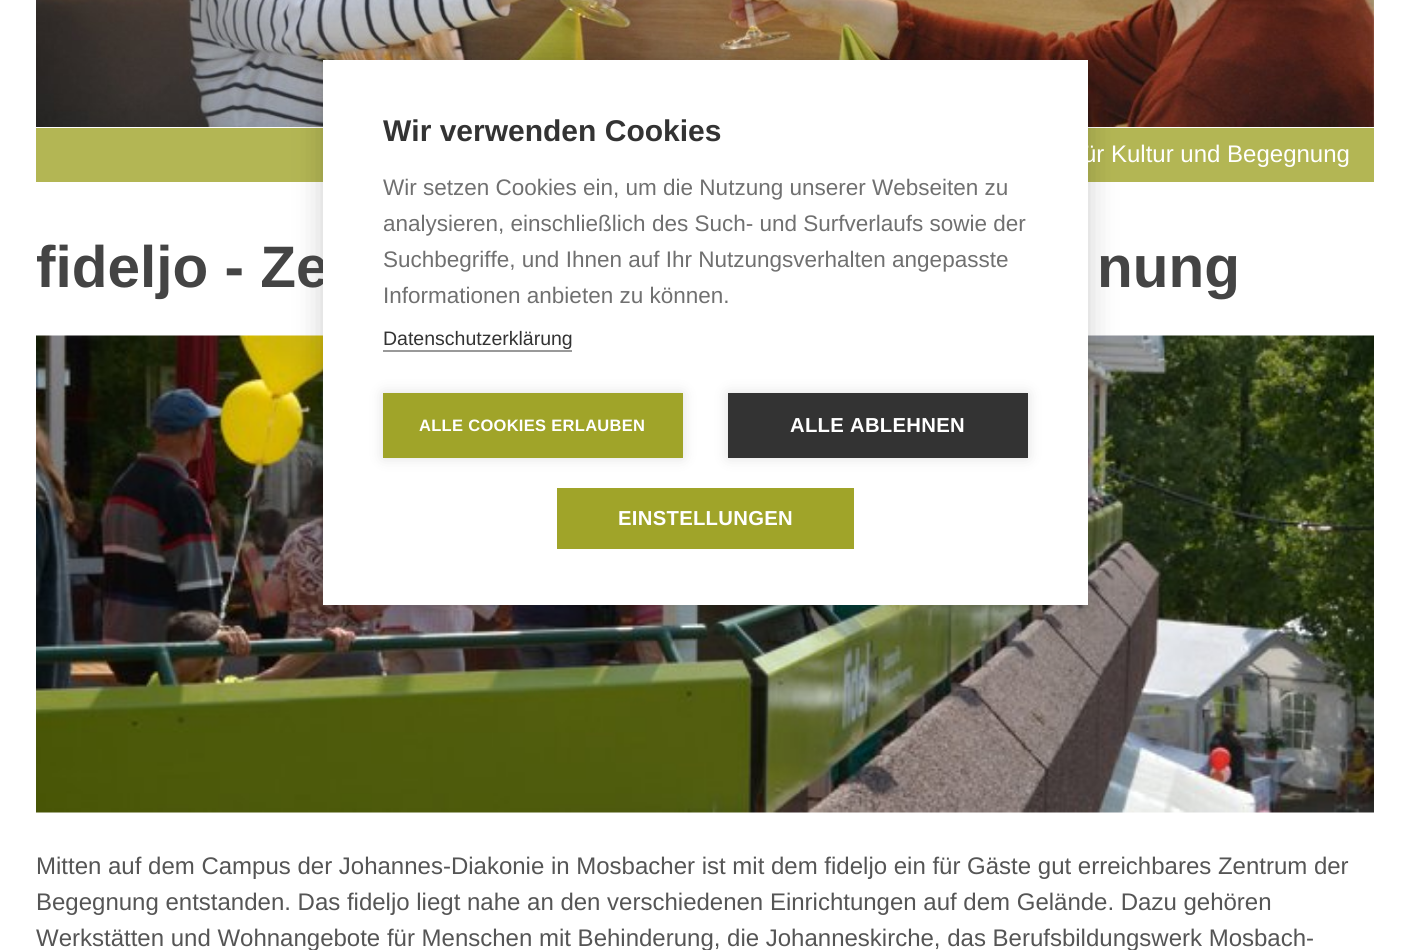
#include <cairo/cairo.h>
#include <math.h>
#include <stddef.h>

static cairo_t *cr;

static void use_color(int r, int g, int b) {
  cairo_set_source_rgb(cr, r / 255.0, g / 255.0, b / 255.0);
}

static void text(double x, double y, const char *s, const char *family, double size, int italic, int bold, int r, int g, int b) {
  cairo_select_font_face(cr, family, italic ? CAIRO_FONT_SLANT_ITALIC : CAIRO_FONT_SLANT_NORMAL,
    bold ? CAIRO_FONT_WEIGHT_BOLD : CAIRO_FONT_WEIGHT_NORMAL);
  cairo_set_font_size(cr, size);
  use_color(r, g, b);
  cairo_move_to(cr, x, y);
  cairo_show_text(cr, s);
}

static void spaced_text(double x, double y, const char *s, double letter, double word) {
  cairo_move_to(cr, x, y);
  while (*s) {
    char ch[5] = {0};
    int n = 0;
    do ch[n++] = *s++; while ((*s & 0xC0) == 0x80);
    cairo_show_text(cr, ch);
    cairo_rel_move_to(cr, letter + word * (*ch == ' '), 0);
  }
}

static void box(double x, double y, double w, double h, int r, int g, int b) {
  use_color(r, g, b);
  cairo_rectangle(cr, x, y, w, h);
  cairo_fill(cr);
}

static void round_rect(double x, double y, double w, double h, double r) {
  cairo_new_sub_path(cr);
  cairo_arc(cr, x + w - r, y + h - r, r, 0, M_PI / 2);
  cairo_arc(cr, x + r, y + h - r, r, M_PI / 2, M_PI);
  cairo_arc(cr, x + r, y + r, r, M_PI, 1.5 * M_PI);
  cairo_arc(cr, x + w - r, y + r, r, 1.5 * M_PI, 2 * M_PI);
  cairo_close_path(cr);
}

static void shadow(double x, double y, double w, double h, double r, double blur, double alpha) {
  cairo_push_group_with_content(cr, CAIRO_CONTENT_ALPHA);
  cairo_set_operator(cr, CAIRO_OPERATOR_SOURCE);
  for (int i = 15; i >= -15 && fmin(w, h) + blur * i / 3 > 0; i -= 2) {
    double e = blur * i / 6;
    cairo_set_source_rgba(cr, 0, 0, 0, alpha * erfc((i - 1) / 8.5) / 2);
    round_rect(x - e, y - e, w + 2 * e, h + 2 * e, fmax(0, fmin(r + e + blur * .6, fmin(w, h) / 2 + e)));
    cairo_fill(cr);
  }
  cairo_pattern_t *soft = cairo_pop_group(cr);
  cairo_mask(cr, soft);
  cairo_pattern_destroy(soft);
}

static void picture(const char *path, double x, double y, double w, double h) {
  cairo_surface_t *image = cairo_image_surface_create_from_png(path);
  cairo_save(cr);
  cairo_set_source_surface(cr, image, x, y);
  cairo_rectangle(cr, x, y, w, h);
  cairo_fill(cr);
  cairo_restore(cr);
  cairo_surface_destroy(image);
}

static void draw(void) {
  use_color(255, 255, 255);
  cairo_paint(cr);
  picture("img_01.png", 36, 0, 1338, 127);
  box(36, 128, 1338, 54, 179, 182, 84);
  picture("img_02.png", 36, 335, 1338, 478);
  use_color(0, 0, 0);
  shadow(323, 60, 765, 545, 0, 15, 0.2);
  text(1083, 162, "ür Kultur und Begegnung", "Liberation Sans", 24, 0, 0, 255, 255, 255);
  text(36, 287, "fideljo - Ze", "Liberation Sans", 58.5, 0, 1, 68, 68, 68);
  box(323, 60, 765, 545, 255, 255, 255);
  box(557, 488, 297, 61, 160, 164, 41);
  cairo_select_font_face(cr, "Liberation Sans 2", CAIRO_FONT_SLANT_NORMAL, CAIRO_FONT_WEIGHT_BOLD);
  cairo_set_font_size(cr, 20.25);
  use_color(255, 255, 255);
  spaced_text(618, 525, "EINSTELLUNGEN", 0.3, 0);
  use_color(0, 0, 0);
  shadow(728, 393, 300, 65, 0, 7.5, 0.12);
  box(728, 393, 300, 65, 51, 51, 51);
  use_color(255, 255, 255);
  spaced_text(790, 432, "ALLE ABLEHNEN", 0.3, 0);
  use_color(0, 0, 0);
  shadow(383, 393, 300, 65, 0, 7.5, 0.12);
  box(383, 393, 300, 65, 160, 164, 41);
  cairo_set_font_size(cr, 16.5);
  use_color(255, 255, 255);
  spaced_text(419, 431, "ALLE COOKIES ERLAUBEN", 0.3, 0);
  text(383, 345, "Datenschutzerklärung", "Liberation Sans 2", 19.5, 0, 0, 51, 51, 51);
  box(383, 350, 189, 2, 153, 153, 153);
  text(383, 303, "Informationen anbieten zu können.", "Liberation Sans 2", 22.5, 0, 0, 112, 112, 112);
  text(383, 267, "Suchbegriffe, und Ihnen auf Ihr Nutzungsverhalten angepasste", "Liberation Sans 2", 22.5, 0, 0, 112, 112, 112);
  text(383, 231, "analysieren, einschließlich des Such- und Surfverlaufs sowie der", "Liberation Sans 2", 22.5, 0, 0, 112, 112, 112);
  text(383, 195, "Wir setzen Cookies ein, um die Nutzung unserer Webseiten zu", "Liberation Sans 2", 22.5, 0, 0, 112, 112, 112);
  text(383, 141, "Wir verwenden Cookies", "Liberation Sans 2", 30, 0, 1, 51, 51, 51);
  text(1097, 287, "nung", "Liberation Sans", 58.5, 0, 1, 68, 68, 68);
  text(36, 874, "Mitten auf dem Campus der Johannes-Diakonie in Mosbacher ist mit dem fideljo ein für Gäste gut erreichbares Zentrum der", "Liberation Sans", 24, 0, 0, 85, 85, 85);
  text(36, 910, "Begegnung entstanden. Das fideljo liegt nahe an den verschiedenen Einrichtungen auf dem Gelände. Dazu gehören", "Liberation Sans", 24, 0, 0, 85, 85, 85);
  text(36, 946, "Werkstätten und Wohnangebote für Menschen mit Behinderung, die Johanneskirche, das Berufsbildungswerk Mosbach-", "Liberation Sans", 24, 0, 0, 85, 85, 85);
}

int main(void) {
  cairo_surface_t *surface = cairo_image_surface_create(CAIRO_FORMAT_RGB24, 1410, 950);
  cr = cairo_create(surface);
  cairo_font_options_t *options = cairo_font_options_create();
  cairo_font_options_set_hint_metrics(options, CAIRO_HINT_METRICS_OFF);
  cairo_font_options_set_hint_style(options, CAIRO_HINT_STYLE_NONE);
  cairo_set_font_options(cr, options);
  cairo_set_miter_limit(cr, 4);
  draw();
  cairo_surface_write_to_png(surface, "out.png");
  cairo_font_options_destroy(options);
  cairo_destroy(cr);
  cairo_surface_destroy(surface);
  return 0;
}
